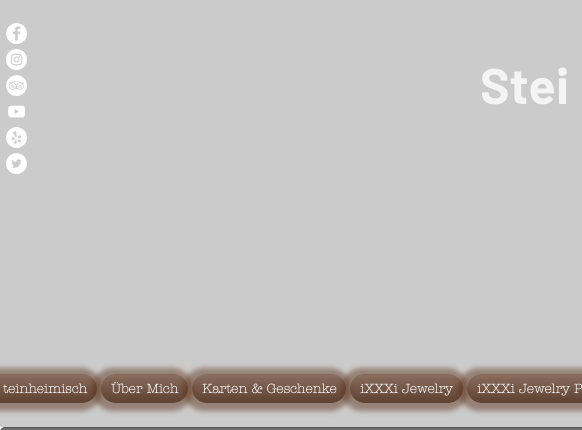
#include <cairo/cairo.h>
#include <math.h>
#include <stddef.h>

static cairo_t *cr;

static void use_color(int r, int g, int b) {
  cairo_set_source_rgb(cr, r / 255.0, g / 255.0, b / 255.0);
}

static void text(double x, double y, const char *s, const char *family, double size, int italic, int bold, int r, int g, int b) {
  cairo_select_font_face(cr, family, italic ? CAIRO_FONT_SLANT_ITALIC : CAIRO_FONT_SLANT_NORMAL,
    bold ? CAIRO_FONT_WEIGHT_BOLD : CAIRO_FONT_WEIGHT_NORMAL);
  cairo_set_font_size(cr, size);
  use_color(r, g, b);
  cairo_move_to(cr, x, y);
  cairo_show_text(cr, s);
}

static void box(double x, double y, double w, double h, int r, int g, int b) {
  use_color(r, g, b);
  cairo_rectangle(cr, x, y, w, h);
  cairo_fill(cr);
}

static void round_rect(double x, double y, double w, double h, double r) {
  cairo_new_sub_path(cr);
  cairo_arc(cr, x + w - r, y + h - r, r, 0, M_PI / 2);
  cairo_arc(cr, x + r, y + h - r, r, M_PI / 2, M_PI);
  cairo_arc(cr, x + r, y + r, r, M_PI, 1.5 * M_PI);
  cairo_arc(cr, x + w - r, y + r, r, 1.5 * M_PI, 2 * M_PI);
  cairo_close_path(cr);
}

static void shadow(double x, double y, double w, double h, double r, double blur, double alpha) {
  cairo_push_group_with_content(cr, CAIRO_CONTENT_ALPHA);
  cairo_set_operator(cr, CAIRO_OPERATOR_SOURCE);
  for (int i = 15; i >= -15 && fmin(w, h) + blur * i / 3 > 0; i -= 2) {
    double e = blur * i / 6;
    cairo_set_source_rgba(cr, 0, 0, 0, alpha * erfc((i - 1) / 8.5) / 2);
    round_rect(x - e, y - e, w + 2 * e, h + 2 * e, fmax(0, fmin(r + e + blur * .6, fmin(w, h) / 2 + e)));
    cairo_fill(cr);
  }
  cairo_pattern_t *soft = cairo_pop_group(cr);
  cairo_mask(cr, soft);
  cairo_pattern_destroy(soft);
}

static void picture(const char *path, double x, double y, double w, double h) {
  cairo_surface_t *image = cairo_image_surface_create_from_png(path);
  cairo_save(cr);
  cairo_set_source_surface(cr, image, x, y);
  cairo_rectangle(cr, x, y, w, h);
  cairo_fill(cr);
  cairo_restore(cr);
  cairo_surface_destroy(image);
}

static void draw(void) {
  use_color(255, 255, 255);
  cairo_paint(cr);
  box(0, 0, 582, 427, 203, 203, 203);
  picture("img_01.png", 6, 23, 21, 21);
  picture("img_02.png", 6, 49, 21, 21);
  picture("img_03.png", 6, 75, 21, 21);
  picture("img_04.png", 8, 105, 18, 13);
  picture("img_05.png", 6, 127, 21, 21);
  picture("img_06.png", 6, 153, 21, 21);
  cairo_save(cr);
  cairo_set_fill_rule(cr, CAIRO_FILL_RULE_EVEN_ODD);
  cairo_new_path(cr);
  cairo_move_to(cr, 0, 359);
  cairo_line_to(cr, 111, 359);
  cairo_line_to(cr, 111, 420);
  cairo_line_to(cr, 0, 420);
  cairo_close_path(cr);
  cairo_move_to(cr, -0.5, 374);
  cairo_line_to(cr, 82.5, 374);
  cairo_curve_to(cr, 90.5, 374, 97, 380.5, 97, 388.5);
  cairo_curve_to(cr, 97, 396.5, 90.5, 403, 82.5, 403);
  cairo_line_to(cr, -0.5, 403);
  cairo_curve_to(cr, -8.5, 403, -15, 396.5, -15, 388.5);
  cairo_curve_to(cr, -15, 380.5, -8.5, 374, -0.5, 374);
  cairo_close_path(cr);
  cairo_clip(cr);
  use_color(84, 39, 13);
  shadow(-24, 368, 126, 43, 21.5, 2.5, 0.45);
  cairo_restore(cr);
  cairo_set_source_rgba(cr, 0.329, 0.153, 0.051, 0.79);
  round_rect(-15, 374, 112, 29, 14.5);
  cairo_fill(cr);
  picture("img_07.png", 0, 374, 97, 29);
  picture("img_08.png", 0, 378, 97, 25);
  cairo_save(cr);
  cairo_set_fill_rule(cr, CAIRO_FILL_RULE_EVEN_ODD);
  cairo_new_path(cr);
  cairo_move_to(cr, 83, 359);
  cairo_line_to(cr, 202, 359);
  cairo_line_to(cr, 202, 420);
  cairo_line_to(cr, 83, 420);
  cairo_close_path(cr);
  cairo_move_to(cr, 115.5, 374);
  cairo_line_to(cr, 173.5, 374);
  cairo_curve_to(cr, 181.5, 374, 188, 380.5, 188, 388.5);
  cairo_curve_to(cr, 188, 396.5, 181.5, 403, 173.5, 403);
  cairo_line_to(cr, 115.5, 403);
  cairo_curve_to(cr, 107.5, 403, 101, 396.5, 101, 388.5);
  cairo_curve_to(cr, 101, 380.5, 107.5, 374, 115.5, 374);
  cairo_close_path(cr);
  cairo_clip(cr);
  use_color(84, 39, 13);
  shadow(92, 368, 101, 43, 21.5, 2.5, 0.45);
  cairo_restore(cr);
  round_rect(101, 374, 87, 29, 14.5);
  cairo_fill(cr);
  picture("img_09.png", 101, 374, 87, 29);
  picture("img_10.png", 101, 378, 87, 25);
  cairo_save(cr);
  cairo_set_fill_rule(cr, CAIRO_FILL_RULE_EVEN_ODD);
  cairo_new_path(cr);
  cairo_move_to(cr, 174, 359);
  cairo_line_to(cr, 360, 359);
  cairo_line_to(cr, 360, 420);
  cairo_line_to(cr, 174, 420);
  cairo_close_path(cr);
  cairo_move_to(cr, 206.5, 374);
  cairo_line_to(cr, 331.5, 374);
  cairo_curve_to(cr, 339.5, 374, 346, 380.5, 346, 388.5);
  cairo_curve_to(cr, 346, 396.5, 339.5, 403, 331.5, 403);
  cairo_line_to(cr, 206.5, 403);
  cairo_curve_to(cr, 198.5, 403, 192, 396.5, 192, 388.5);
  cairo_curve_to(cr, 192, 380.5, 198.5, 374, 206.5, 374);
  cairo_close_path(cr);
  cairo_clip(cr);
  use_color(84, 39, 13);
  shadow(183, 368, 168, 43, 21.5, 2.5, 0.45);
  cairo_restore(cr);
  round_rect(192, 374, 154, 29, 14.5);
  cairo_fill(cr);
  picture("img_11.png", 192, 374, 154, 29);
  picture("img_12.png", 192, 378, 154, 25);
  cairo_save(cr);
  cairo_set_fill_rule(cr, CAIRO_FILL_RULE_EVEN_ODD);
  cairo_new_path(cr);
  cairo_move_to(cr, 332, 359);
  cairo_line_to(cr, 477, 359);
  cairo_line_to(cr, 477, 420);
  cairo_line_to(cr, 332, 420);
  cairo_close_path(cr);
  cairo_move_to(cr, 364.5, 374);
  cairo_line_to(cr, 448.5, 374);
  cairo_curve_to(cr, 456.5, 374, 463, 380.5, 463, 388.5);
  cairo_curve_to(cr, 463, 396.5, 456.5, 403, 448.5, 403);
  cairo_line_to(cr, 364.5, 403);
  cairo_curve_to(cr, 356.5, 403, 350, 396.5, 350, 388.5);
  cairo_curve_to(cr, 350, 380.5, 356.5, 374, 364.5, 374);
  cairo_close_path(cr);
  cairo_clip(cr);
  use_color(84, 39, 13);
  shadow(341, 368, 127, 43, 21.5, 2.5, 0.45);
  cairo_restore(cr);
  round_rect(350, 374, 113, 29, 14.5);
  cairo_fill(cr);
  picture("img_13.png", 350, 374, 113, 29);
  picture("img_14.png", 350, 378, 113, 25);
  cairo_save(cr);
  cairo_set_fill_rule(cr, CAIRO_FILL_RULE_EVEN_ODD);
  cairo_new_path(cr);
  cairo_move_to(cr, 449, 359);
  cairo_line_to(cr, 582, 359);
  cairo_line_to(cr, 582, 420);
  cairo_line_to(cr, 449, 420);
  cairo_close_path(cr);
  cairo_move_to(cr, 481.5, 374);
  cairo_line_to(cr, 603.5, 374);
  cairo_curve_to(cr, 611.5, 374, 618, 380.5, 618, 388.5);
  cairo_curve_to(cr, 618, 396.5, 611.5, 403, 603.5, 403);
  cairo_line_to(cr, 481.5, 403);
  cairo_curve_to(cr, 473.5, 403, 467, 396.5, 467, 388.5);
  cairo_curve_to(cr, 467, 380.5, 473.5, 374, 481.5, 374);
  cairo_close_path(cr);
  cairo_clip(cr);
  use_color(84, 39, 13);
  shadow(458, 368, 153, 43, 21.5, 2.5, 0.45);
  cairo_restore(cr);
  round_rect(467, 374, 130, 29, 14.5);
  cairo_fill(cr);
  picture("img_15.png", 467, 374, 115, 29);
  picture("img_16.png", 467, 378, 115, 25);
  use_color(112, 112, 112);
  round_rect(0.5, 427.5, 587, 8, 4.5);
  cairo_fill_preserve(cr);
  use_color(84, 84, 84);
  cairo_set_line_width(cr, 1);
  cairo_stroke(cr);
  text(480, 104, "Stei", "Barlow", 50, 0, 1, 244, 244, 244);
  text(3, 393, "teinheimisch", "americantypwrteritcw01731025", 13, 0, 1, 255, 255, 255);
  text(111, 393, "Über Mich", "americantypwrteritcw01731025", 13, 0, 1, 255, 255, 255);
  text(202, 393, "Karten & Geschenke", "americantypwrteritcw01731025", 13, 0, 1, 255, 255, 255);
  text(360, 393, "iXXXi Jewelry", "americantypwrteritcw01731025", 13, 0, 1, 255, 255, 255);
  text(477, 393, "iXXXi Jewelry P", "americantypwrteritcw01731025", 13, 0, 1, 255, 255, 255);
}

int main(void) {
  cairo_surface_t *surface = cairo_image_surface_create(CAIRO_FORMAT_RGB24, 582, 430);
  cr = cairo_create(surface);
  cairo_font_options_t *options = cairo_font_options_create();
  cairo_font_options_set_hint_metrics(options, CAIRO_HINT_METRICS_OFF);
  cairo_font_options_set_hint_style(options, CAIRO_HINT_STYLE_NONE);
  cairo_set_font_options(cr, options);
  cairo_set_miter_limit(cr, 4);
  draw();
  cairo_surface_write_to_png(surface, "out.png");
  cairo_font_options_destroy(options);
  cairo_destroy(cr);
  cairo_surface_destroy(surface);
  return 0;
}
